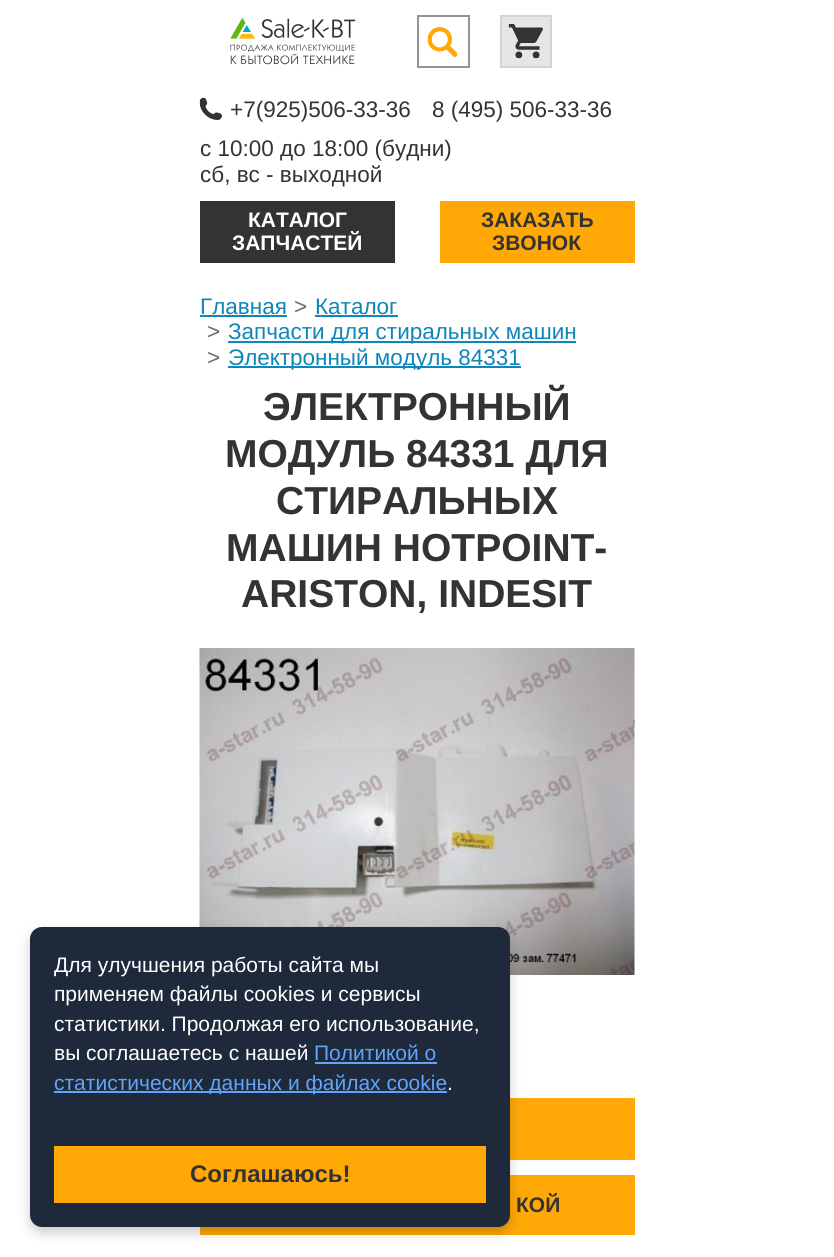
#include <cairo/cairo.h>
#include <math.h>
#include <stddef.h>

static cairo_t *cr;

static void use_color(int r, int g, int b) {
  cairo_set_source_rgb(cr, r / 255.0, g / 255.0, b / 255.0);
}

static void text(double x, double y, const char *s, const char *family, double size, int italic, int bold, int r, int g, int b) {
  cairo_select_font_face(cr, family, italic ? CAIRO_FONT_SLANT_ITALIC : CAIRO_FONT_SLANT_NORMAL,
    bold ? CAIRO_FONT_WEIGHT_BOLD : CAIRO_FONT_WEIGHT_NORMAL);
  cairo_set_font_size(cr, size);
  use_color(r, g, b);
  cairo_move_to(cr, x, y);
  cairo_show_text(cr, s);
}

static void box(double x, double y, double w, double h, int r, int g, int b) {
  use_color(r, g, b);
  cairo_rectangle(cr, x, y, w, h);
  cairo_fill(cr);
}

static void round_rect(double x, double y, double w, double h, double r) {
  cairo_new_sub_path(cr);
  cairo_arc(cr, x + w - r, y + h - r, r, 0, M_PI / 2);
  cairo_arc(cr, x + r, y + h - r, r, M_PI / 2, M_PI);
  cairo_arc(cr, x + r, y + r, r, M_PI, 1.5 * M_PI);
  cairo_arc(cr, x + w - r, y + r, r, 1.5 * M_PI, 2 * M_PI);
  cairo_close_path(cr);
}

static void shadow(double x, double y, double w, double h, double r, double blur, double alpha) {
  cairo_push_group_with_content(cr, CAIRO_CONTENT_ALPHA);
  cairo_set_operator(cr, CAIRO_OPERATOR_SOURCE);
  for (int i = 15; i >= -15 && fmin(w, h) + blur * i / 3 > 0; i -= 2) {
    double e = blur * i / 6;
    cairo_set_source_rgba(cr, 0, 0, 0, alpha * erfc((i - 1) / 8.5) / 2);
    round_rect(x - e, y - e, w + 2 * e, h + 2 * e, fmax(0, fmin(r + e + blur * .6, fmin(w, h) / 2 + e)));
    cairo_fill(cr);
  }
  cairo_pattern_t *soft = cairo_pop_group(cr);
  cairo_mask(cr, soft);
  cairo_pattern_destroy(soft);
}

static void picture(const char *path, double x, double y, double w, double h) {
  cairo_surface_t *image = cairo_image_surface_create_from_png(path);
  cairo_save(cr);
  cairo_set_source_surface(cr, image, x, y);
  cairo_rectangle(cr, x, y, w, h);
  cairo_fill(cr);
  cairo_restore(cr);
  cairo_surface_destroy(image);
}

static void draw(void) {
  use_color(255, 255, 255);
  cairo_paint(cr);
  picture("img_01.png", 230, 17, 126, 48);
  cairo_rectangle(cr, 418, 16, 51, 51);
  use_color(151, 147, 149);
  cairo_stroke(cr);
  picture("img_02.png", 427, 27, 31, 30);
  use_color(230, 230, 230);
  cairo_rectangle(cr, 501, 16, 50, 51);
  cairo_fill_preserve(cr);
  use_color(212, 212, 212);
  cairo_stroke(cr);
  picture("img_03.png", 508, 24, 35, 35);
  picture("img_04.png", 199, 97, 23, 23);
  box(200, 201, 195, 62, 51, 51, 51);
  box(440, 201, 195, 62, 255, 168, 6);
  box(200, 315, 87, 2, 13, 134, 187);
  box(315, 315, 83, 2, 13, 134, 187);
  box(228, 341, 348, 2, 13, 134, 187);
  box(228, 366, 293, 2, 13, 134, 187);
  picture("img_05.png", 199, 648, 436, 327);
  box(510, 1098, 125, 62, 255, 168, 6);
  box(200, 1175, 435, 60, 255, 168, 6);
  use_color(0, 0, 0);
  shadow(30, 933, 480, 300, 12, 6, 0.2);
  use_color(30, 41, 59);
  round_rect(30, 927, 480, 300, 12);
  cairo_fill(cr);
  box(315, 1062, 122, 2, 96, 165, 250);
  box(54, 1091, 393, 2, 96, 165, 250);
  box(54, 1146, 432, 57, 255, 168, 6);
  text(230, 117, "+7(925)506-33-36", "Liberation Sans", 22.5, 0, 0, 51, 51, 51);
  text(432, 117, "8 (495) 506-33-36", "Liberation Sans", 22.5, 0, 0, 51, 51, 51);
  text(200, 156, "с 10:00 до 18:00 (будни)", "Liberation Sans", 22.5, 0, 0, 51, 51, 51);
  text(200, 182, "сб, вс - выходной", "Liberation Sans", 22.5, 0, 0, 51, 51, 51);
  text(248, 227, "КАТАЛОГ", "Liberation Sans", 21, 0, 1, 255, 255, 255);
  text(232, 250, "ЗАПЧАСТЕЙ", "Liberation Sans", 21, 0, 1, 255, 255, 255);
  text(481, 227, "ЗАКАЗАТЬ", "Liberation Sans", 21, 0, 1, 51, 51, 51);
  text(492, 250, "ЗВОНОК", "Liberation Sans", 21, 0, 1, 51, 51, 51);
  text(200, 314, "Главная", "Liberation Sans", 22.5, 0, 0, 13, 134, 187);
  text(294, 314, ">", "Liberation Sans", 22.5, 0, 0, 108, 108, 108);
  text(315, 314, "Каталог", "Liberation Sans", 22.5, 0, 0, 13, 134, 187);
  text(207, 339, ">", "Liberation Sans", 22.5, 0, 0, 108, 108, 108);
  text(228, 339, "Запчасти для стиральных машин", "Liberation Sans", 22.5, 0, 0, 13, 134, 187);
  text(207, 365, ">", "Liberation Sans", 22.5, 0, 0, 108, 108, 108);
  text(228, 365, "Электронный модуль 84331", "Liberation Sans", 22.5, 0, 0, 13, 134, 187);
  text(263, 420, "ЭЛЕКТРОННЫЙ", "Liberation Sans", 39, 0, 1, 51, 51, 51);
  text(225, 467, "МОДУЛЬ 84331 ДЛЯ", "Liberation Sans", 39, 0, 1, 51, 51, 51);
  text(276, 514, "СТИРАЛЬНЫХ", "Liberation Sans", 39, 0, 1, 51, 51, 51);
  text(226, 561, "МАШИН HOTPOINT-", "Liberation Sans", 39, 0, 1, 51, 51, 51);
  text(241, 607, "ARISTON, INDESIT", "Liberation Sans", 39, 0, 1, 51, 51, 51);
  text(516, 1212, "КОЙ", "Liberation Sans", 21, 0, 1, 51, 51, 51);
  text(54, 972, "Для улучшения работы сайта мы", "Liberation Sans", 21, 0, 0, 255, 255, 255);
  text(54, 1001, "применяем файлы cookies и сервисы", "Liberation Sans", 21, 0, 0, 255, 255, 255);
  text(54, 1031, "статистики. Продолжая его использование,", "Liberation Sans", 21, 0, 0, 255, 255, 255);
  text(54, 1060, "вы соглашаетесь с нашей", "Liberation Sans", 21, 0, 0, 255, 255, 255);
  text(314, 1060, "Политикой о", "Liberation Sans", 21, 0, 0, 96, 165, 250);
  text(54, 1090, "статистических данных и файлах cookie", "Liberation Sans", 21, 0, 0, 96, 165, 250);
  text(447, 1090, ".", "Liberation Sans", 21, 0, 0, 255, 255, 255);
  text(190, 1182, "Соглашаюсь!", "Liberation Sans", 24, 0, 1, 51, 51, 51);
}

int main(void) {
  cairo_surface_t *surface = cairo_image_surface_create(CAIRO_FORMAT_RGB24, 834, 1257);
  cr = cairo_create(surface);
  cairo_font_options_t *options = cairo_font_options_create();
  cairo_font_options_set_hint_metrics(options, CAIRO_HINT_METRICS_OFF);
  cairo_font_options_set_hint_style(options, CAIRO_HINT_STYLE_NONE);
  cairo_set_font_options(cr, options);
  cairo_set_miter_limit(cr, 4);
  draw();
  cairo_surface_write_to_png(surface, "out.png");
  cairo_font_options_destroy(options);
  cairo_destroy(cr);
  cairo_surface_destroy(surface);
  return 0;
}
